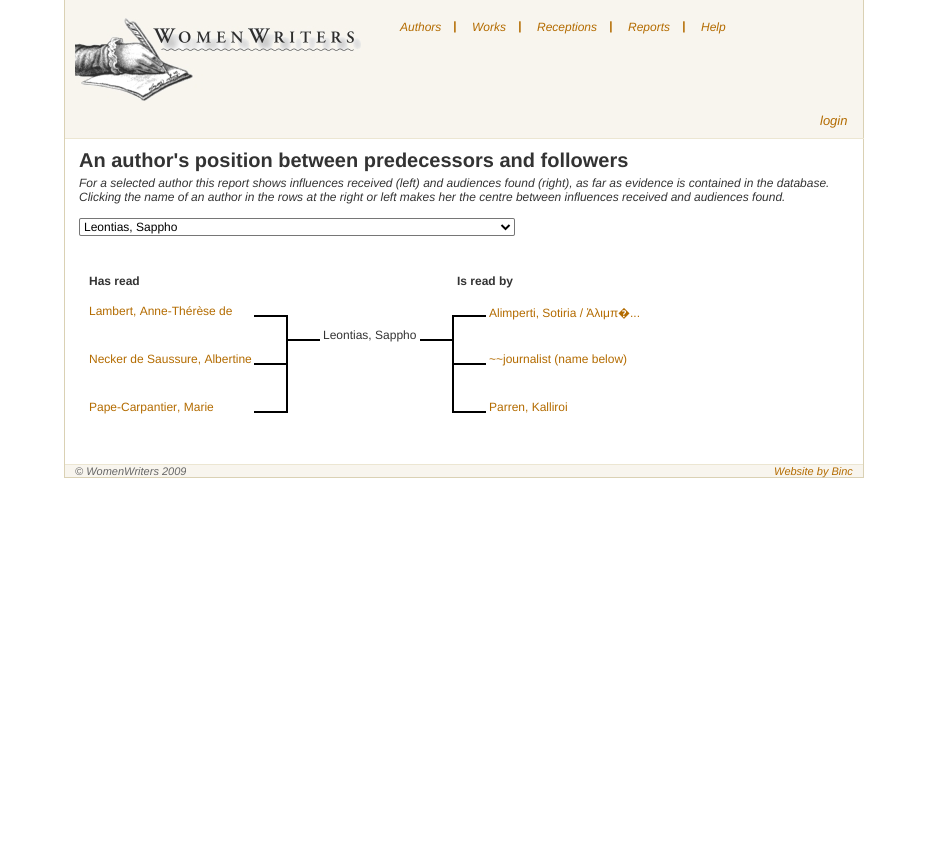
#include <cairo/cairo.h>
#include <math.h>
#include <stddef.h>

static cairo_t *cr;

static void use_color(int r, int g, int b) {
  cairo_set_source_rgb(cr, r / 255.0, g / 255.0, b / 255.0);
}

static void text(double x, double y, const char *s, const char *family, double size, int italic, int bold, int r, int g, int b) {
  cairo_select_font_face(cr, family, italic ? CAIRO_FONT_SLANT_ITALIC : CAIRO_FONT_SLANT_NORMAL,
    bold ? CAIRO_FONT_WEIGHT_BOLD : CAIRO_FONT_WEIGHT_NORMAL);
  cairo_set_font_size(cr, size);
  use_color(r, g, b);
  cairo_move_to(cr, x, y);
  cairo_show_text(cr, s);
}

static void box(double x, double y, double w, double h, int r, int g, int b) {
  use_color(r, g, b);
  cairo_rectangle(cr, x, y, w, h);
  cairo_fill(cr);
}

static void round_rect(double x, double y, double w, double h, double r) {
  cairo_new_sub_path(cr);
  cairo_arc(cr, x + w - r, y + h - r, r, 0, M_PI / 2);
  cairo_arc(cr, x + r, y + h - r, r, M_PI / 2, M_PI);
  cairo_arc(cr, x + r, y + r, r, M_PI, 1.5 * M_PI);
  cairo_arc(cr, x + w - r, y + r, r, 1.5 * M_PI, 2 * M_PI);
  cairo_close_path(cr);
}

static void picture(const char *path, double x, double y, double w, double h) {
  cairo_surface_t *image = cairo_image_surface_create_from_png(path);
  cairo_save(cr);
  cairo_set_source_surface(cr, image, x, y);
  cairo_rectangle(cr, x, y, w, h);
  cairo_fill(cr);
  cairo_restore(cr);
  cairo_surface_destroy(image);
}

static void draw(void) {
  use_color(255, 255, 255);
  cairo_paint(cr);
  box(65, 0, 798, 138, 248, 245, 238);
  box(863, 0, 1, 464, 218, 209, 180);
  box(64, 138, 800, 1, 236, 230, 210);
  box(64, 0, 1, 464, 218, 209, 180);
  picture("img_01.png", 75, 18, 286, 83);
  round_rect(79.5, 218.5, 435, 17, 1.5);
  use_color(118, 118, 118);
  cairo_set_line_width(cr, 1);
  cairo_stroke(cr);
  cairo_new_path(cr);
  cairo_move_to(cr, 501.5, 225);
  cairo_line_to(cr, 505.5, 229);
  cairo_line_to(cr, 509.5, 225);
  use_color(0, 0, 0);
  cairo_set_line_width(cr, 2);
  cairo_stroke(cr);
  box(254, 315, 21, 2, 0, 0, 0);
  picture("img_02.png", 275, 315, 13, 13);
  picture("img_03.png", 286, 328, 13, 24);
  box(254, 363, 21, 2, 0, 0, 0);
  picture("img_04.png", 275, 352, 13, 24);
  box(286, 376, 2, 24, 0, 0, 0);
  box(254, 411, 21, 2, 0, 0, 0);
  picture("img_05.png", 275, 400, 13, 13);
  box(299, 339, 21, 2, 0, 0, 0);
  box(420, 339, 21, 2, 0, 0, 0);
  picture("img_06.png", 452, 315, 13, 13);
  box(465, 315, 21, 2, 0, 0, 0);
  picture("img_04.png", 441, 328, 13, 24);
  picture("img_03.png", 452, 352, 13, 24);
  box(465, 363, 21, 2, 0, 0, 0);
  box(452, 376, 2, 24, 0, 0, 0);
  picture("img_07.png", 452, 400, 13, 13);
  box(465, 411, 21, 2, 0, 0, 0);
  box(65, 465, 798, 12, 248, 245, 238);
  box(64, 464, 800, 1, 236, 230, 210);
  box(863, 464, 1, 14, 218, 209, 180);
  box(64, 477, 800, 1, 218, 209, 180);
  box(64, 464, 1, 14, 218, 209, 180);
  text(400, 31, "Authors", "Liberation Sans", 12, 1, 0, 179, 107, 0);
  text(453, 30, "|", "Liberation Sans", 12, 1, 1, 179, 107, 0);
  text(472, 31, "Works", "Liberation Sans", 12, 1, 0, 179, 107, 0);
  text(518, 30, "|", "Liberation Sans", 12, 1, 1, 179, 107, 0);
  text(537, 31, "Receptions", "Liberation Sans", 12, 1, 0, 179, 107, 0);
  text(609, 30, "|", "Liberation Sans", 12, 1, 1, 179, 107, 0);
  text(628, 31, "Reports", "Liberation Sans", 12, 1, 0, 179, 107, 0);
  text(682, 30, "|", "Liberation Sans", 12, 1, 1, 179, 107, 0);
  text(701, 31, "Help", "Liberation Sans", 12, 1, 0, 179, 107, 0);
  text(820, 125, "login", "Liberation Sans", 13, 1, 0, 179, 107, 0);
  text(79, 167, "An author's position between predecessors and followers", "Liberation Sans", 20, 0, 1, 51, 51, 51);
  text(79, 187, "For a selected author this report shows influences received (left) and audiences found (right), as far as evidence is contained in the database.", "Liberation Sans", 12, 1, 0, 51, 51, 51);
  text(79, 201, "Clicking the name of an author in the rows at the right or left makes her the centre between influences received and audiences found.", "Liberation Sans", 12, 1, 0, 51, 51, 51);
  text(84, 231, "Leontias, Sappho", "Liberation Sans", 12, 0, 0, 0, 0, 0);
  text(89, 285, "Has read", "Liberation Sans", 12, 0, 1, 51, 51, 51);
  text(457, 285, "Is read by", "Liberation Sans", 12, 0, 1, 51, 51, 51);
  text(89, 315, "Lambert, Anne-Thérèse de", "Liberation Sans", 12, 0, 0, 179, 107, 0);
  text(89, 363, "Necker de Saussure, Albertine", "Liberation Sans", 12, 0, 0, 179, 107, 0);
  text(89, 411, "Pape-Carpantier, Marie", "Liberation Sans", 12, 0, 0, 179, 107, 0);
  text(323, 339, "Leontias, Sappho", "Liberation Sans", 12, 0, 0, 51, 51, 51);
  text(489, 317, "Alimperti, Sotiria / Ἀλιμπ", "Liberation Sans", 12, 0, 0, 179, 107, 0);
  text(618, 317, "�", "Noto Sans", 12, 0, 0, 179, 107, 0);
  text(630, 317, "...", "Liberation Sans", 12, 0, 0, 179, 107, 0);
  text(489, 363, "~~journalist (name below)", "Liberation Sans", 12, 0, 0, 179, 107, 0);
  text(489, 411, "Parren, Kalliroi", "Liberation Sans", 12, 0, 0, 179, 107, 0);
  text(75, 475, "© WomenWriters 2009", "Liberation Sans", 11, 1, 0, 102, 102, 102);
  text(774, 475, "Website by Binc", "Liberation Sans", 11, 1, 0, 179, 107, 0);
}

int main(void) {
  cairo_surface_t *surface = cairo_image_surface_create(CAIRO_FORMAT_RGB24, 927, 845);
  cr = cairo_create(surface);
  cairo_font_options_t *options = cairo_font_options_create();
  cairo_font_options_set_hint_metrics(options, CAIRO_HINT_METRICS_OFF);
  cairo_font_options_set_hint_style(options, CAIRO_HINT_STYLE_NONE);
  cairo_set_font_options(cr, options);
  cairo_set_miter_limit(cr, 4);
  draw();
  cairo_surface_write_to_png(surface, "out.png");
  cairo_font_options_destroy(options);
  cairo_destroy(cr);
  cairo_surface_destroy(surface);
  return 0;
}
